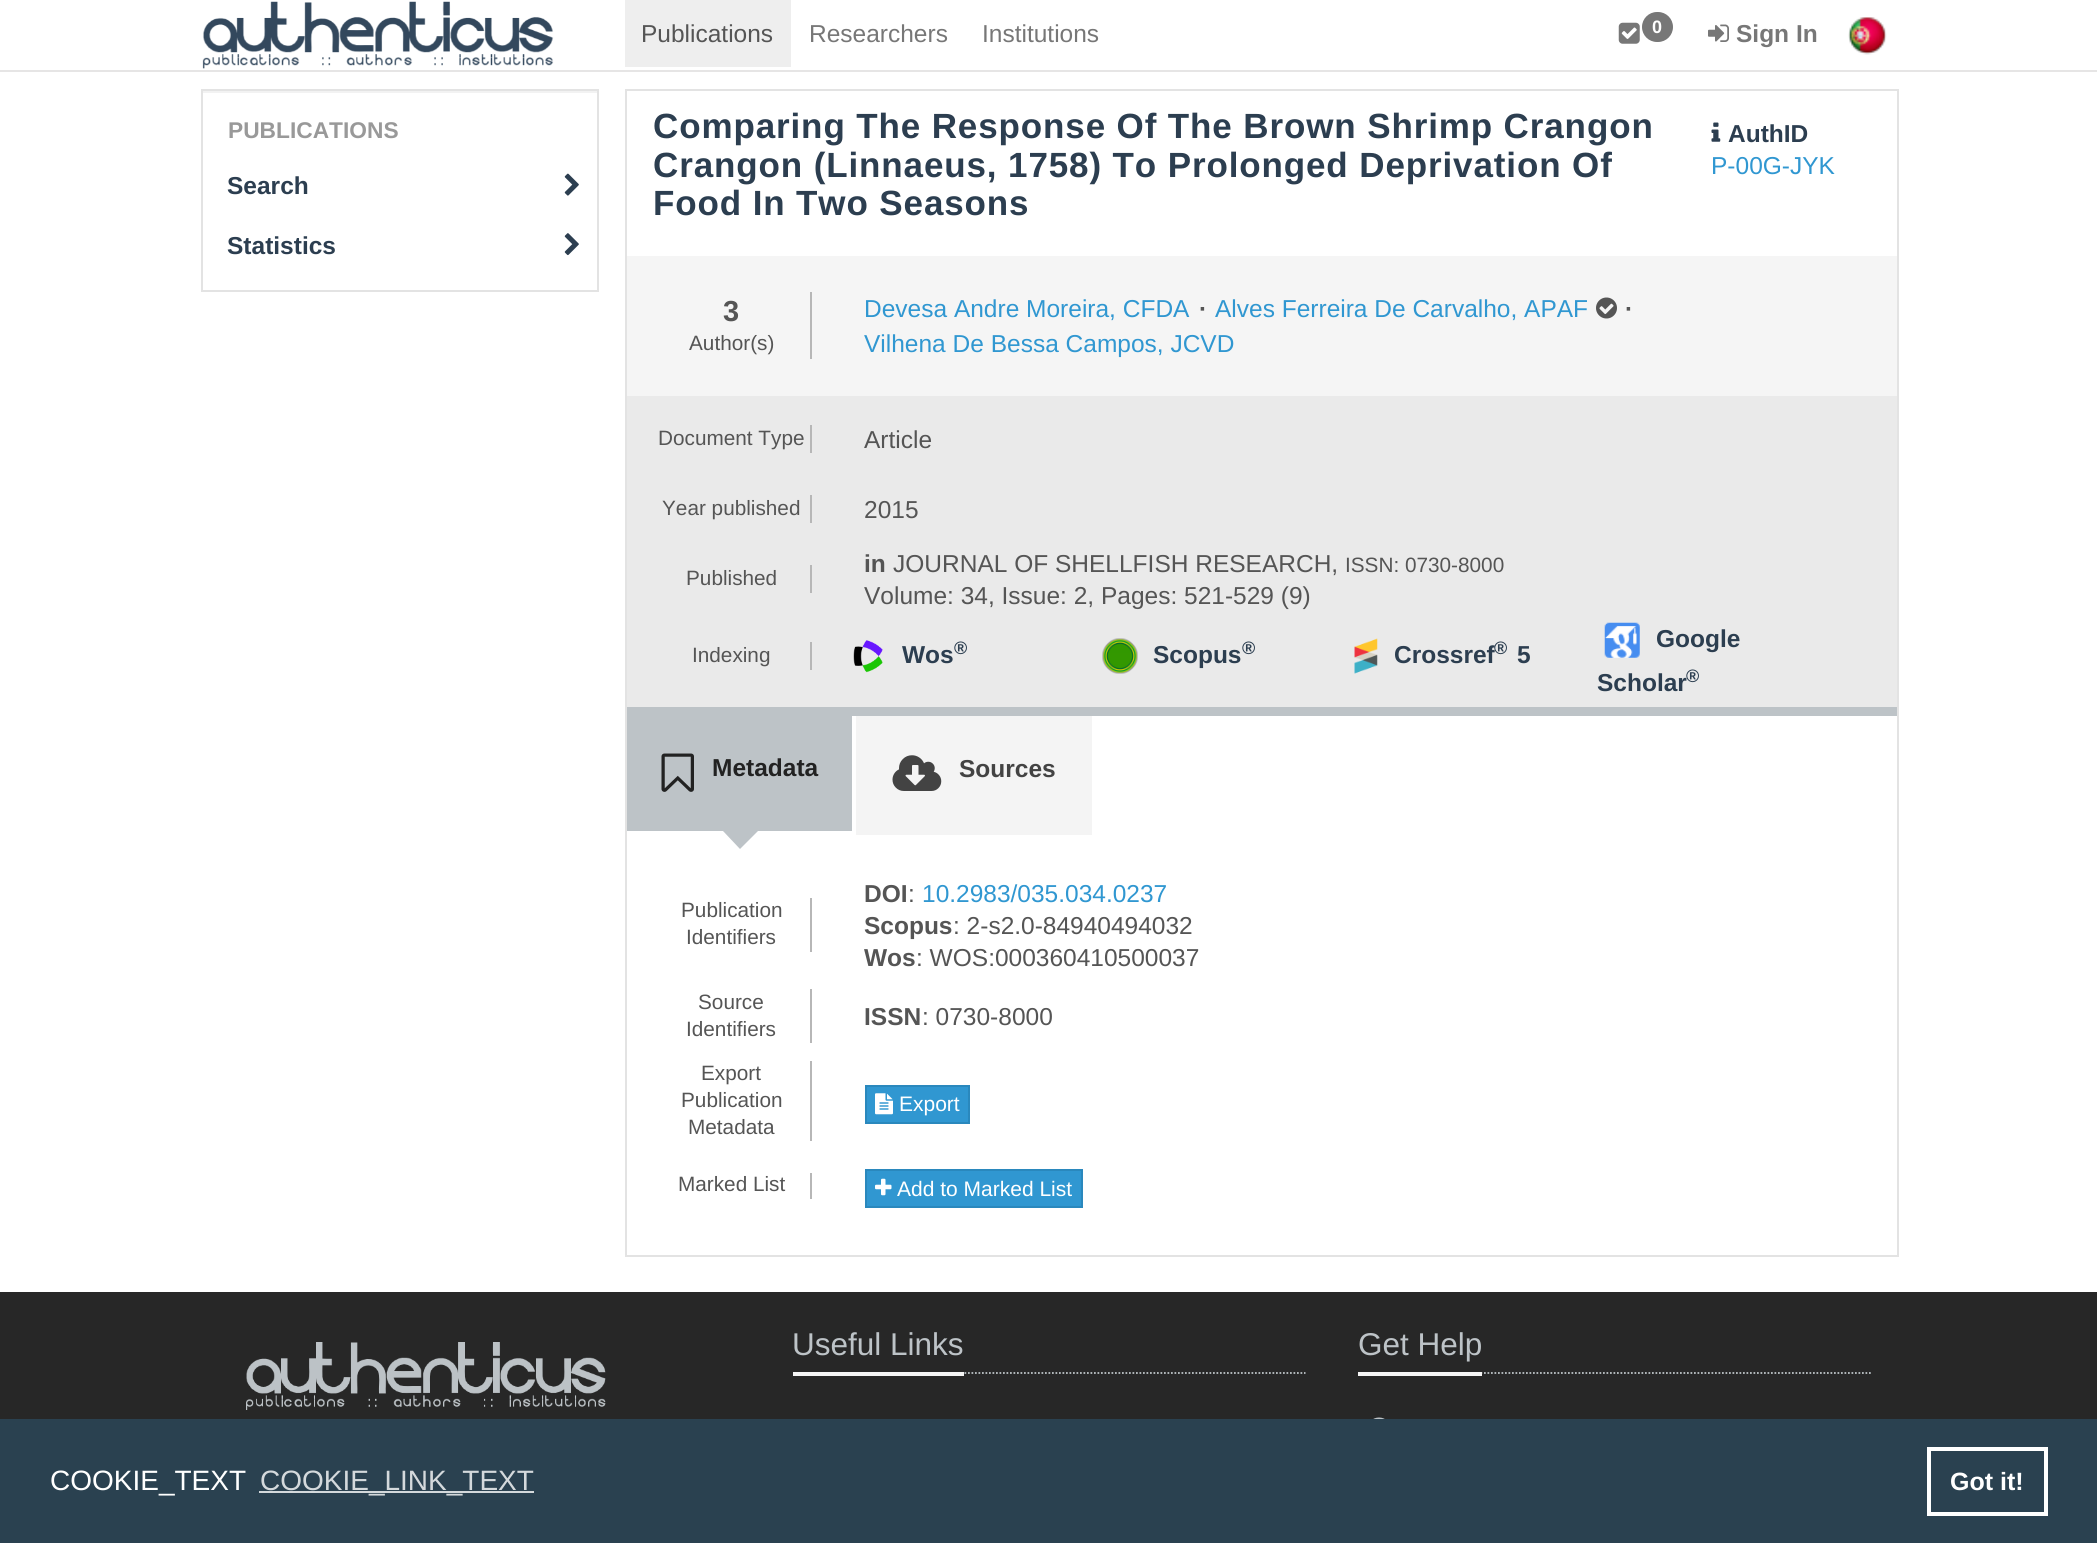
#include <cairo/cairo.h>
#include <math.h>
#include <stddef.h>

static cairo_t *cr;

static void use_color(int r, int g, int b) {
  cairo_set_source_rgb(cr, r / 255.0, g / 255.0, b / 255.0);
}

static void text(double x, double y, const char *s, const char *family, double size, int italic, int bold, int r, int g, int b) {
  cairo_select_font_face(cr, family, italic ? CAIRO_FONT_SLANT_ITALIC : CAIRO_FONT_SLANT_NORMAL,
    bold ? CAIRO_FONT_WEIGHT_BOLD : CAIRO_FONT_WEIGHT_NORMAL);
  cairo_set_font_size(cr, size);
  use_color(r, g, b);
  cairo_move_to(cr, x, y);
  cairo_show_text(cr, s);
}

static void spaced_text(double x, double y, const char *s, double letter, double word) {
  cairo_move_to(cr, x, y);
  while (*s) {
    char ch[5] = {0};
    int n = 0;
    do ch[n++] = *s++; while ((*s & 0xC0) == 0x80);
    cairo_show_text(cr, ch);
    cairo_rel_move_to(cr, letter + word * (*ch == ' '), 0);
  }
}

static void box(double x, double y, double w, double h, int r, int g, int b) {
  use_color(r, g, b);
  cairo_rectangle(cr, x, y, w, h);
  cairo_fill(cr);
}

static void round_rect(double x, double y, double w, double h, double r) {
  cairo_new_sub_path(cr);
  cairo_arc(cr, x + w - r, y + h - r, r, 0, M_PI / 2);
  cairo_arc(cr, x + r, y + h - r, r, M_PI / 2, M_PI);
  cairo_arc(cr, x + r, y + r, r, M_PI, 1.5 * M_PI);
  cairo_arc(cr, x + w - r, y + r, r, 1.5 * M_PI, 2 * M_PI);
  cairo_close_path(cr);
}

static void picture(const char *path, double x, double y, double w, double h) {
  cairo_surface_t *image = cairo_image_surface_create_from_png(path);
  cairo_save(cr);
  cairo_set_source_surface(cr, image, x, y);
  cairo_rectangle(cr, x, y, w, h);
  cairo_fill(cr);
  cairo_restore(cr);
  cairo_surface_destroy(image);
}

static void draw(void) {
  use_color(255, 255, 255);
  cairo_paint(cr);
  box(0, 70, 2097, 2, 230, 229, 229);
  picture("img_01.png", 202, 1, 352, 68);
  box(625, 0, 166, 67, 238, 238, 238);
  picture("img_02.png", 1618, 22, 22, 22);
  use_color(119, 119, 119);
  round_rect(1642, 12, 31, 30, 15);
  cairo_fill(cr);
  picture("img_03.png", 1708, 24, 21, 18);
  picture("img_04.png", 1848, 17, 39, 38);
  box(203, 91, 394, 2, 242, 242, 242);
  cairo_rectangle(cr, 202, 90, 396, 201);
  use_color(227, 227, 227);
  cairo_stroke(cr);
  picture("img_05.png", 564, 173, 15, 23);
  picture("img_06.png", 564, 233, 15, 23);
  cairo_rectangle(cr, 626, 90, 1272, 1166);
  cairo_stroke(cr);
  box(627, 707, 1270, 9, 189, 195, 199);
  picture("img_07.png", 1711, 122, 10, 20);
  box(627, 256, 1270, 140, 245, 245, 245);
  box(810, 292, 2, 67, 183, 183, 183);
  picture("img_08.png", 1596, 297, 21, 22);
  box(627, 396, 1270, 311, 234, 234, 234);
  box(810, 425, 2, 28, 183, 183, 183);
  box(810, 495, 2, 28, 183, 183, 183);
  box(810, 565, 2, 28, 183, 183, 183);
  box(810, 642, 2, 28, 183, 183, 183);
  picture("img_09.png", 853, 640, 30, 33);
  picture("img_10.png", 1102, 638, 36, 36);
  picture("img_11.png", 1354, 638, 24, 36);
  picture("img_12.png", 1604, 622, 36, 36);
  box(627, 716, 225, 115, 189, 195, 199);
  picture("img_13.png", 661, 753, 33, 39);
  cairo_new_path(cr);
  cairo_move_to(cr, 723, 831);
  cairo_line_to(cr, 758, 831);
  cairo_line_to(cr, 740, 849);
  cairo_close_path(cr);
  cairo_fill(cr);
  box(856, 716, 236, 119, 244, 244, 244);
  picture("img_14.png", 892, 755, 50, 36);
  box(810, 898, 2, 54, 183, 183, 183);
  box(810, 989, 2, 54, 183, 183, 183);
  box(810, 1061, 2, 80, 183, 183, 183);
  use_color(48, 151, 209);
  cairo_rectangle(cr, 866, 1086, 103, 37);
  cairo_fill_preserve(cr);
  use_color(42, 136, 189);
  cairo_stroke(cr);
  picture("img_15.png", 875, 1093, 18, 22);
  box(810, 1173, 2, 26, 183, 183, 183);
  use_color(48, 151, 209);
  cairo_rectangle(cr, 866, 1170, 216, 37);
  cairo_fill_preserve(cr);
  use_color(42, 136, 189);
  cairo_stroke(cr);
  picture("img_16.png", 875, 1178, 17, 18);
  box(0, 1292, 2097, 127, 39, 39, 39);
  picture("img_17.png", 246, 1342, 360, 68);
  cairo_new_path(cr);
  cairo_move_to(cr, 793, 1373);
  cairo_line_to(cr, 1305.5, 1373);
  use_color(189, 195, 199);
  cairo_set_line_width(cr, 1.8);
  cairo_set_dash(cr, (double[]){1.75, 1.75}, 2, 0);
  cairo_stroke(cr);
  box(793, 1372, 171, 4, 245, 245, 245);
  cairo_new_path(cr);
  cairo_move_to(cr, 1358, 1373);
  cairo_line_to(cr, 1871, 1373);
  use_color(189, 195, 199);
  cairo_stroke(cr);
  box(1358, 1372, 124, 4, 245, 245, 245);
  picture("img_18.png", 1373, 1417, 12, 2);
  box(0, 1419, 2097, 124, 42, 65, 80);
  box(259, 1491, 275, 2, 212, 217, 220);
  cairo_rectangle(cr, 1929, 1449, 117, 65);
  use_color(255, 255, 255);
  cairo_set_line_width(cr, 4);
  cairo_set_dash(cr, NULL, 0, 0);
  cairo_stroke(cr);
  text(641, 42, "Publications", "Liberation Sans", 24.5, 0, 0, 85, 85, 85);
  text(809, 42, "Researchers", "Liberation Sans", 24.5, 0, 0, 119, 119, 119);
  text(982, 42, "Institutions", "Liberation Sans", 24.5, 0, 0, 119, 119, 119);
  text(1652, 33, "0", "Liberation Sans", 18, 0, 1, 255, 255, 255);
  text(1736, 42, "Sign In", "Liberation Sans", 24.5, 0, 1, 119, 119, 119);
  text(228, 138, "PUBLICATIONS", "Liberation Sans", 22.75, 0, 1, 153, 153, 153);
  text(227, 194, "Search", "Liberation Sans", 24.5, 0, 1, 44, 62, 80);
  text(227, 254, "Statistics", "Liberation Sans", 24.5, 0, 1, 44, 62, 80);
  cairo_set_font_size(cr, 35);
  spaced_text(653, 138, "Comparing The Response Of The Brown Shrimp Crangon", 0.88, 0);
  spaced_text(653, 177, "Crangon (Linnaeus, 1758) To Prolonged Deprivation Of", 0.88, 0);
  spaced_text(653, 215, "Food In Two Seasons", 0.88, 0);
  text(1728, 142, "AuthID", "Liberation Sans", 24.5, 0, 1, 44, 62, 80);
  text(1711, 174, "P-00G-JYK", "Liberation Sans", 24.5, 0, 0, 48, 151, 209);
  text(723, 321, "3", "Liberation Sans", 29, 0, 1, 85, 85, 85);
  text(689, 350, "Author(s)", "Liberation Sans", 20.75, 0, 0, 85, 85, 85);
  text(864, 317, "Devesa Andre Moreira, CFDA", "Liberation Sans", 24.5, 0, 0, 48, 151, 209);
  text(1199, 317, "·", "Liberation Sans", 24.5, 0, 1, 85, 85, 85);
  text(1215, 317, "Alves Ferreira De Carvalho, APAF", "Liberation Sans", 24.5, 0, 0, 48, 151, 209);
  text(1625, 317, "·", "Liberation Sans", 24.5, 0, 1, 85, 85, 85);
  text(864, 352, "Vilhena De Bessa Campos, JCVD", "Liberation Sans", 24.5, 0, 0, 48, 151, 209);
  text(658, 445, "Document Type", "Liberation Sans", 20.75, 0, 0, 85, 85, 85);
  text(864, 448, "Article", "Liberation Sans", 24.5, 0, 0, 85, 85, 85);
  text(662, 515, "Year published", "Liberation Sans", 20.75, 0, 0, 85, 85, 85);
  text(864, 518, "2015", "Liberation Sans", 24.5, 0, 0, 85, 85, 85);
  text(686, 585, "Published", "Liberation Sans", 20.75, 0, 0, 85, 85, 85);
  text(864, 572, "in", "Liberation Sans", 24.5, 0, 1, 85, 85, 85);
  text(893, 572, "JOURNAL OF SHELLFISH RESEARCH,", "Liberation Sans", 24.5, 0, 0, 85, 85, 85);
  text(1345, 572, "ISSN: 0730-8000", "Liberation Sans", 20.75, 0, 0, 85, 85, 85);
  text(864, 604, "Volume: 34, Issue: 2, Pages: 521-529 (9)", "Liberation Sans", 24.5, 0, 0, 85, 85, 85);
  text(692, 662, "Indexing", "Liberation Sans", 20.75, 0, 0, 85, 85, 85);
  text(902, 663, "Wos", "Liberation Sans", 24.5, 0, 1, 44, 62, 80);
  text(954, 654, "®", "Liberation Sans", 18, 0, 1, 44, 62, 80);
  text(1153, 663, "Scopus", "Liberation Sans", 24.5, 0, 1, 44, 62, 80);
  text(1242, 654, "®", "Liberation Sans", 18, 0, 1, 44, 62, 80);
  text(1394, 663, "Crossref", "Liberation Sans", 24.5, 0, 1, 44, 62, 80);
  text(1494, 654, "®", "Liberation Sans", 18, 0, 1, 44, 62, 80);
  text(1517, 663, "5", "Liberation Sans", 24.5, 0, 1, 44, 62, 80);
  text(1656, 647, "Google", "Liberation Sans", 24.5, 0, 1, 44, 62, 80);
  text(1597, 691, "Scholar", "Liberation Sans", 24.5, 0, 1, 44, 62, 80);
  text(1686, 682, "®", "Liberation Sans", 18, 0, 1, 44, 62, 80);
  text(712, 776, "Metadata", "Liberation Sans", 24.5, 0, 1, 34, 34, 34);
  text(959, 777, "Sources", "Liberation Sans", 24.5, 0, 1, 67, 67, 67);
  text(681, 917, "Publication", "Liberation Sans", 20.75, 0, 0, 85, 85, 85);
  text(686, 944, "Identifiers", "Liberation Sans", 20.75, 0, 0, 85, 85, 85);
  text(864, 902, "DOI", "Liberation Sans", 24.5, 0, 1, 85, 85, 85);
  text(908, 902, ":", "Liberation Sans", 24.5, 0, 0, 85, 85, 85);
  text(922, 902, "10.2983/035.034.0237", "Liberation Sans", 24.5, 0, 0, 48, 151, 209);
  text(864, 934, "Scopus", "Liberation Sans", 24.5, 0, 1, 85, 85, 85);
  text(953, 934, ": 2-s2.0-84940494032", "Liberation Sans", 24.5, 0, 0, 85, 85, 85);
  text(864, 966, "Wos", "Liberation Sans", 24.5, 0, 1, 85, 85, 85);
  text(916, 966, ": WOS:000360410500037", "Liberation Sans", 24.5, 0, 0, 85, 85, 85);
  text(698, 1009, "Source", "Liberation Sans", 20.75, 0, 0, 85, 85, 85);
  text(686, 1036, "Identifiers", "Liberation Sans", 20.75, 0, 0, 85, 85, 85);
  text(864, 1025, "ISSN", "Liberation Sans", 24.5, 0, 1, 85, 85, 85);
  text(922, 1025, ": 0730-8000", "Liberation Sans", 24.5, 0, 0, 85, 85, 85);
  text(701, 1080, "Export", "Liberation Sans", 20.75, 0, 0, 85, 85, 85);
  text(681, 1107, "Publication", "Liberation Sans", 20.75, 0, 0, 85, 85, 85);
  text(688, 1134, "Metadata", "Liberation Sans", 20.75, 0, 0, 85, 85, 85);
  text(899, 1111, "Export", "Liberation Sans", 21, 0, 0, 255, 255, 255);
  text(678, 1191, "Marked List", "Liberation Sans", 20.75, 0, 0, 85, 85, 85);
  text(897, 1196, "Add to Marked List", "Liberation Sans", 21, 0, 0, 255, 255, 255);
  text(792, 1355, "Useful Links", "Liberation Sans", 31.5, 0, 0, 189, 195, 199);
  text(1358, 1355, "Get Help", "Liberation Sans", 31.5, 0, 0, 189, 195, 199);
  text(50, 1490, "COOKIE_TEXT", "Liberation Sans", 28, 0, 0, 255, 255, 255);
  text(260, 1490, "COOKIE_LINK_TEXT", "Liberation Sans", 28, 0, 0, 212, 217, 220);
  text(1950, 1490, "Got it!", "Liberation Sans", 25, 0, 1, 255, 255, 255);
}

int main(void) {
  cairo_surface_t *surface = cairo_image_surface_create(CAIRO_FORMAT_RGB24, 2097, 1543);
  cr = cairo_create(surface);
  cairo_font_options_t *options = cairo_font_options_create();
  cairo_font_options_set_hint_metrics(options, CAIRO_HINT_METRICS_OFF);
  cairo_font_options_set_hint_style(options, CAIRO_HINT_STYLE_NONE);
  cairo_set_font_options(cr, options);
  cairo_set_miter_limit(cr, 4);
  draw();
  cairo_surface_write_to_png(surface, "out.png");
  cairo_font_options_destroy(options);
  cairo_destroy(cr);
  cairo_surface_destroy(surface);
  return 0;
}
